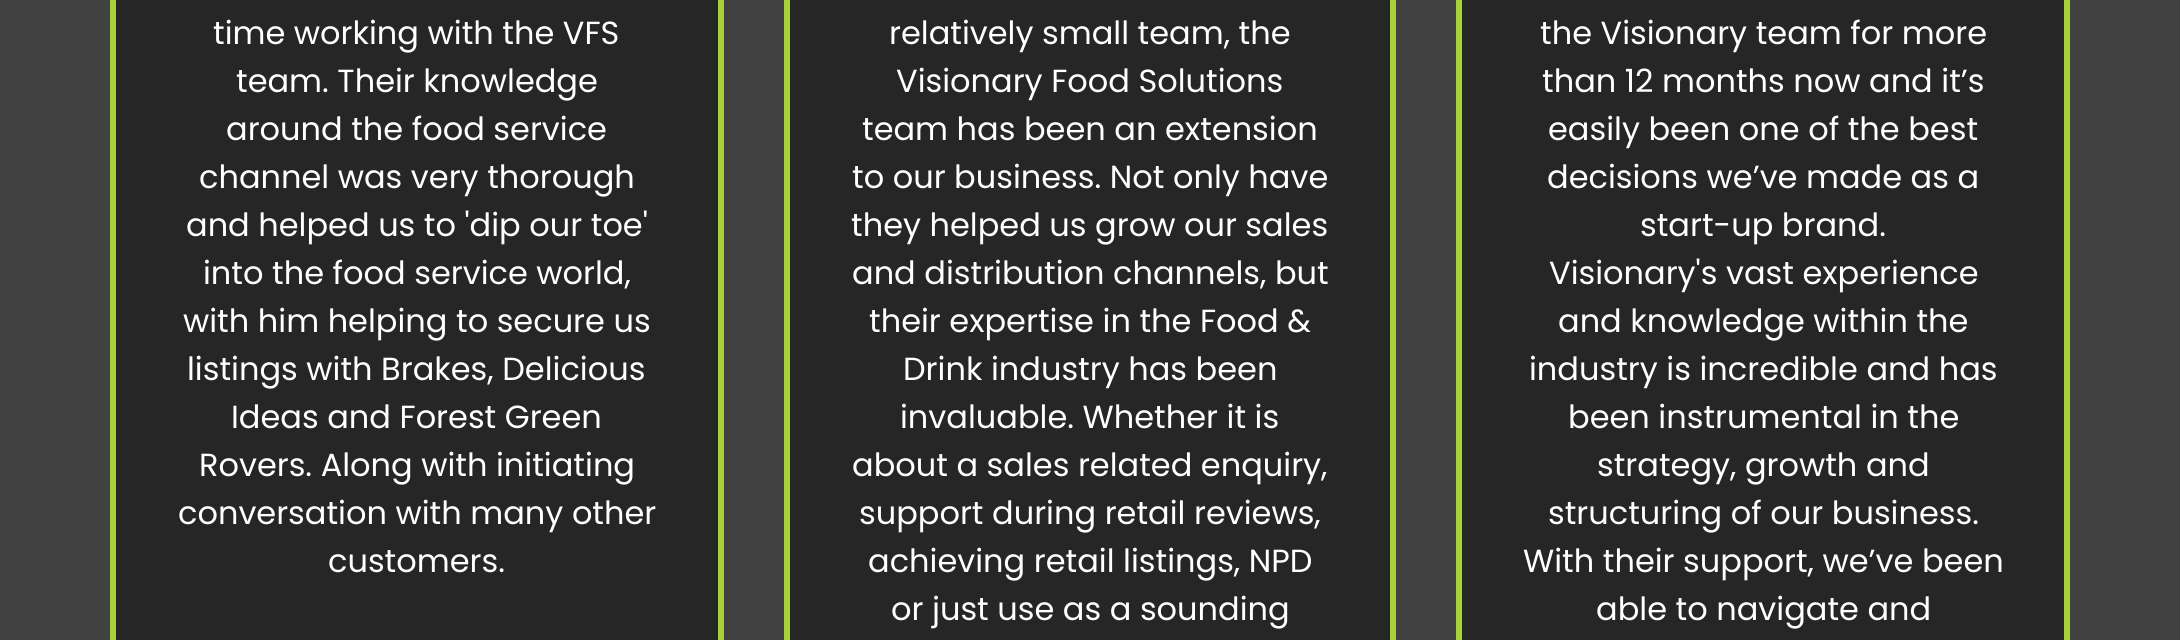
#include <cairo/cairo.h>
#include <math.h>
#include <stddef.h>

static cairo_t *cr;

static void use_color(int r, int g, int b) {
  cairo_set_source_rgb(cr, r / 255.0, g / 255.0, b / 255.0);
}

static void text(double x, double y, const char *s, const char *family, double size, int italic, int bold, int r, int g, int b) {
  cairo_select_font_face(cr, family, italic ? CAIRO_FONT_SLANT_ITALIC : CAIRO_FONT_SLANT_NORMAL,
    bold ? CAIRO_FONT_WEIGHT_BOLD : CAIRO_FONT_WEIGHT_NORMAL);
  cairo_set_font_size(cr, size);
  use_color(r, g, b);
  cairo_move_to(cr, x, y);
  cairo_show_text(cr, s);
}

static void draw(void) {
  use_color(65, 65, 65);
  cairo_paint(cr);
  use_color(38, 38, 38);
  cairo_rectangle(cr, 113, -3, 608, 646);
  cairo_fill_preserve(cr);
  use_color(169, 207, 58);
  cairo_set_line_width(cr, 6);
  cairo_stroke(cr);
  use_color(38, 38, 38);
  cairo_rectangle(cr, 787, -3, 606, 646);
  cairo_fill_preserve(cr);
  use_color(169, 207, 58);
  cairo_stroke(cr);
  use_color(38, 38, 38);
  cairo_rectangle(cr, 1459, -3, 608, 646);
  cairo_fill_preserve(cr);
  use_color(169, 207, 58);
  cairo_stroke(cr);
  text(213, 44, "time working with the VFS", "Poppins", 32, 0, 0, 255, 255, 255);
  text(236, 92, "team. Their knowledge", "Poppins", 32, 0, 0, 255, 255, 255);
  text(226, 140, "around the food service", "Poppins", 32, 0, 0, 255, 255, 255);
  text(199, 188, "channel was very thorough", "Poppins", 32, 0, 0, 255, 255, 255);
  text(186, 236, "and helped us to 'dip our toe'", "Poppins", 32, 0, 0, 255, 255, 255);
  text(203, 284, "into the food service world,", "Poppins", 32, 0, 0, 255, 255, 255);
  text(183, 332, "with him helping to secure us", "Poppins", 32, 0, 0, 255, 255, 255);
  text(187, 380, "listings with Brakes, Delicious", "Poppins", 32, 0, 0, 255, 255, 255);
  text(231, 428, "Ideas and Forest Green", "Poppins", 32, 0, 0, 255, 255, 255);
  text(199, 476, "Rovers. Along with initiating", "Poppins", 32, 0, 0, 255, 255, 255);
  text(178, 524, "conversation with many other", "Poppins", 32, 0, 0, 255, 255, 255);
  text(328, 572, "customers.", "Poppins", 32, 0, 0, 255, 255, 255);
  text(889, 44, "relatively small team, the", "Poppins", 32, 0, 0, 255, 255, 255);
  text(896, 92, "Visionary Food Solutions", "Poppins", 32, 0, 0, 255, 255, 255);
  text(862, 140, "team has been an extension", "Poppins", 32, 0, 0, 255, 255, 255);
  text(852, 188, "to our business. Not only have", "Poppins", 32, 0, 0, 255, 255, 255);
  text(851, 236, "they helped us grow our sales", "Poppins", 32, 0, 0, 255, 255, 255);
  text(852, 284, "and distribution channels, but", "Poppins", 32, 0, 0, 255, 255, 255);
  text(869, 332, "their expertise in the Food &", "Poppins", 32, 0, 0, 255, 255, 255);
  text(903, 380, "Drink industry has been", "Poppins", 32, 0, 0, 255, 255, 255);
  text(900, 428, "invaluable. Whether it is", "Poppins", 32, 0, 0, 255, 255, 255);
  text(852, 476, "about a sales related enquiry,", "Poppins", 32, 0, 0, 255, 255, 255);
  text(859, 524, "support during retail reviews,", "Poppins", 32, 0, 0, 255, 255, 255);
  text(868, 572, "achieving retail listings, NPD", "Poppins", 32, 0, 0, 255, 255, 255);
  text(891, 620, "or just use as a sounding", "Poppins", 32, 0, 0, 255, 255, 255);
  text(1540, 44, "the Visionary team for more", "Poppins", 32, 0, 0, 255, 255, 255);
  text(1542, 92, "than 12 months now and it’s", "Poppins", 32, 0, 0, 255, 255, 255);
  text(1548, 140, "easily been one of the best", "Poppins", 32, 0, 0, 255, 255, 255);
  text(1547, 188, "decisions we’ve made as a", "Poppins", 32, 0, 0, 255, 255, 255);
  text(1640, 236, "start-up brand.", "Poppins", 32, 0, 0, 255, 255, 255);
  text(1549, 284, "Visionary's vast experience", "Poppins", 32, 0, 0, 255, 255, 255);
  text(1558, 332, "and knowledge within the", "Poppins", 32, 0, 0, 255, 255, 255);
  text(1529, 380, "industry is incredible and has", "Poppins", 32, 0, 0, 255, 255, 255);
  text(1568, 428, "been instrumental in the", "Poppins", 32, 0, 0, 255, 255, 255);
  text(1597, 476, "strategy, growth and", "Poppins", 32, 0, 0, 255, 255, 255);
  text(1548, 524, "structuring of our business.", "Poppins", 32, 0, 0, 255, 255, 255);
  text(1523, 572, "With their support, we’ve been", "Poppins", 32, 0, 0, 255, 255, 255);
  text(1596, 620, "able to navigate and", "Poppins", 32, 0, 0, 255, 255, 255);
}

int main(void) {
  cairo_surface_t *surface = cairo_image_surface_create(CAIRO_FORMAT_RGB24, 2180, 640);
  cr = cairo_create(surface);
  cairo_font_options_t *options = cairo_font_options_create();
  cairo_font_options_set_hint_metrics(options, CAIRO_HINT_METRICS_OFF);
  cairo_font_options_set_hint_style(options, CAIRO_HINT_STYLE_NONE);
  cairo_set_font_options(cr, options);
  cairo_set_miter_limit(cr, 4);
  draw();
  cairo_surface_write_to_png(surface, "out.png");
  cairo_font_options_destroy(options);
  cairo_destroy(cr);
  cairo_surface_destroy(surface);
  return 0;
}
